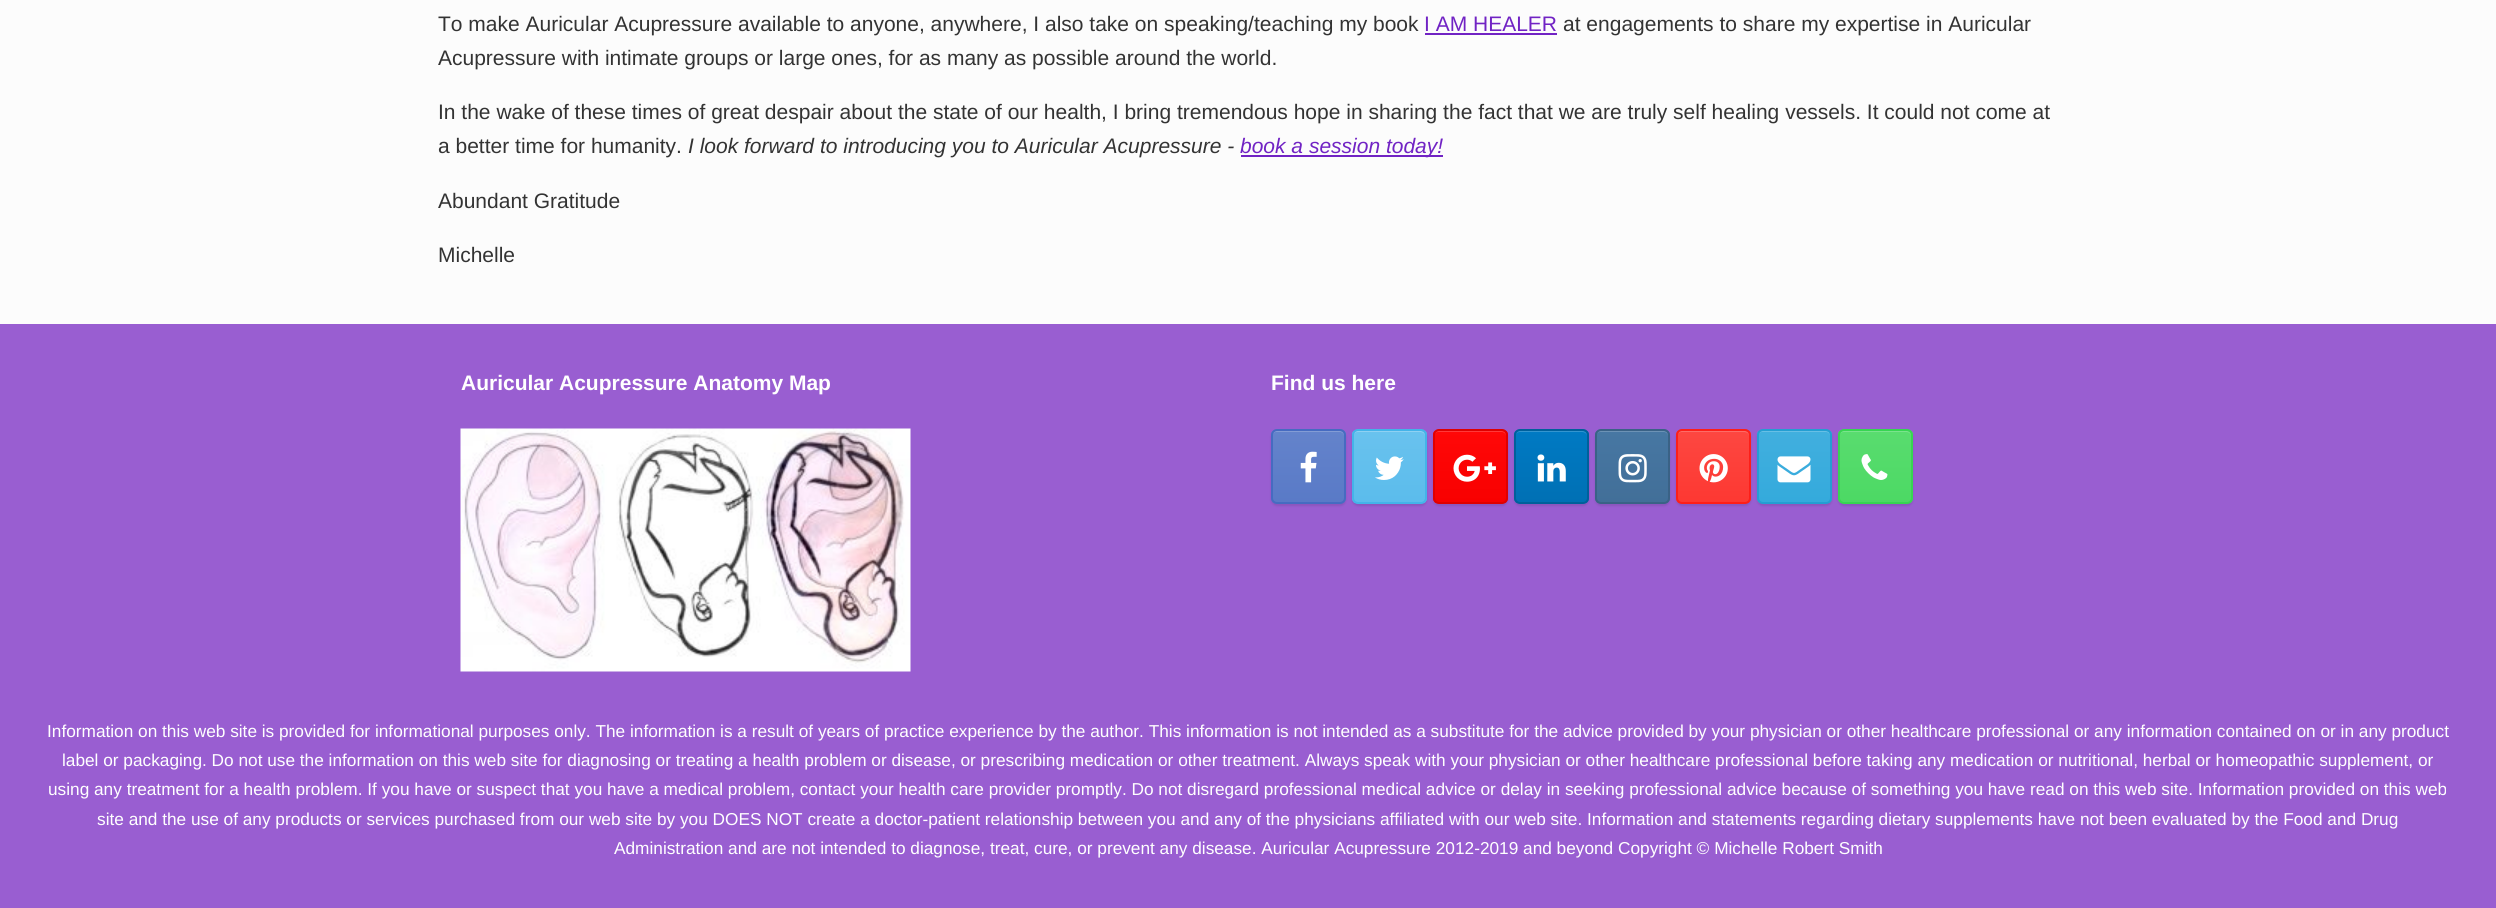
#include <cairo/cairo.h>
#include <math.h>
#include <stddef.h>

static cairo_t *cr;

static void use_color(int r, int g, int b) {
  cairo_set_source_rgb(cr, r / 255.0, g / 255.0, b / 255.0);
}

static void text(double x, double y, const char *s, const char *family, double size, int italic, int bold, int r, int g, int b) {
  cairo_select_font_face(cr, family, italic ? CAIRO_FONT_SLANT_ITALIC : CAIRO_FONT_SLANT_NORMAL,
    bold ? CAIRO_FONT_WEIGHT_BOLD : CAIRO_FONT_WEIGHT_NORMAL);
  cairo_set_font_size(cr, size);
  use_color(r, g, b);
  cairo_move_to(cr, x, y);
  cairo_show_text(cr, s);
}

static void box(double x, double y, double w, double h, int r, int g, int b) {
  use_color(r, g, b);
  cairo_rectangle(cr, x, y, w, h);
  cairo_fill(cr);
}

static void round_rect(double x, double y, double w, double h, double r) {
  cairo_new_sub_path(cr);
  cairo_arc(cr, x + w - r, y + h - r, r, 0, M_PI / 2);
  cairo_arc(cr, x + r, y + h - r, r, M_PI / 2, M_PI);
  cairo_arc(cr, x + r, y + r, r, M_PI, 1.5 * M_PI);
  cairo_arc(cr, x + w - r, y + r, r, 1.5 * M_PI, 2 * M_PI);
  cairo_close_path(cr);
}

static void shadow(double x, double y, double w, double h, double r, double blur, double alpha) {
  cairo_push_group_with_content(cr, CAIRO_CONTENT_ALPHA);
  cairo_set_operator(cr, CAIRO_OPERATOR_SOURCE);
  for (int i = 15; i >= -15 && fmin(w, h) + blur * i / 3 > 0; i -= 2) {
    double e = blur * i / 6;
    cairo_set_source_rgba(cr, 0, 0, 0, alpha * erfc((i - 1) / 8.5) / 2);
    round_rect(x - e, y - e, w + 2 * e, h + 2 * e, fmax(0, fmin(r + e + blur * .6, fmin(w, h) / 2 + e)));
    cairo_fill(cr);
  }
  cairo_pattern_t *soft = cairo_pop_group(cr);
  cairo_mask(cr, soft);
  cairo_pattern_destroy(soft);
}

static void picture(const char *path, double x, double y, double w, double h) {
  cairo_surface_t *image = cairo_image_surface_create_from_png(path);
  cairo_save(cr);
  cairo_set_source_surface(cr, image, x, y);
  cairo_rectangle(cr, x, y, w, h);
  cairo_fill(cr);
  cairo_restore(cr);
  cairo_surface_destroy(image);
}

static void draw(void) {
  cairo_pattern_t *gradient;
  use_color(153, 94, 209);
  cairo_paint(cr);
  box(0, 0, 2496, 324, 252, 252, 252);
  box(1425, 33, 132, 2, 113, 35, 196);
  box(1241, 155, 202, 2, 113, 35, 196);
  picture("img_01.png", 460, 428, 451, 244);
  use_color(0, 0, 0);
  shadow(1271, 431, 75, 75, 6, 1, 0.1);
  cairo_save(cr);
  round_rect(1271, 429, 75, 75, 6);
  cairo_clip(cr);
  gradient = cairo_pattern_create_linear(1272, 503, 1272, 431);
  cairo_pattern_add_color_stop_rgba(gradient, 0, 0.349, 0.478, 0.78, 1);
  cairo_pattern_add_color_stop_rgba(gradient, 1, 0.392, 0.514, 0.796, 1);
  cairo_set_source(cr, gradient);
  cairo_pattern_destroy(gradient);
  cairo_rectangle(cr, 1271, 431, 75, 72);
  cairo_fill(cr);
  cairo_restore(cr);
  use_color(131, 156, 213);
  cairo_new_path(cr);
  cairo_move_to(cr, 1276, 432);
  cairo_line_to(cr, 1340, 432);
  cairo_curve_to(cr, 1342, 432, 1344, 434, 1344, 436);
  cairo_curve_to(cr, 1344, 433, 1342, 431, 1339, 431);
  cairo_line_to(cr, 1277, 431);
  cairo_curve_to(cr, 1274, 431, 1272, 433, 1272, 436);
  cairo_curve_to(cr, 1272, 434, 1274, 432, 1276, 432);
  cairo_close_path(cr);
  cairo_fill(cr);
  round_rect(1272, 430, 73, 73, 5);
  use_color(70, 107, 193);
  cairo_stroke(cr);
  picture("img_02.png", 1300, 451, 17, 32);
  use_color(0, 0, 0);
  shadow(1352, 431, 75, 75, 6, 1, 0.1);
  cairo_save(cr);
  round_rect(1352, 429, 75, 75, 6);
  cairo_clip(cr);
  gradient = cairo_pattern_create_linear(1353, 503, 1353, 431);
  cairo_pattern_add_color_stop_rgba(gradient, 0, 0.357, 0.737, 0.925, 1);
  cairo_pattern_add_color_stop_rgba(gradient, 1, 0.412, 0.761, 0.933, 1);
  cairo_set_source(cr, gradient);
  cairo_pattern_destroy(gradient);
  cairo_rectangle(cr, 1352, 431, 75, 72);
  cairo_fill(cr);
  cairo_restore(cr);
  use_color(143, 209, 242);
  cairo_new_path(cr);
  cairo_move_to(cr, 1358, 432);
  cairo_line_to(cr, 1420, 432);
  cairo_curve_to(cr, 1423, 432, 1425, 434, 1425, 436);
  cairo_curve_to(cr, 1425, 433, 1423, 431, 1420, 431);
  cairo_line_to(cr, 1358, 431);
  cairo_curve_to(cr, 1355, 431, 1353, 433, 1353, 436);
  cairo_curve_to(cr, 1353, 434, 1355, 432, 1358, 432);
  cairo_close_path(cr);
  cairo_fill(cr);
  round_rect(1353, 430, 73, 73, 5);
  use_color(68, 179, 233);
  cairo_stroke(cr);
  picture("img_03.png", 1375, 456, 29, 24);
  use_color(0, 0, 0);
  shadow(1433, 431, 75, 75, 6, 1, 0.1);
  cairo_save(cr);
  round_rect(1433, 429, 75, 75, 6);
  cairo_clip(cr);
  gradient = cairo_pattern_create_linear(1434, 503, 1434, 431);
  cairo_pattern_add_color_stop_rgba(gradient, 0, 0.973, 0, 0, 1);
  cairo_pattern_add_color_stop_rgba(gradient, 1, 1, 0.031, 0.031, 1);
  cairo_set_source(cr, gradient);
  cairo_pattern_destroy(gradient);
  cairo_rectangle(cr, 1433, 431, 75, 72);
  cairo_fill(cr);
  cairo_restore(cr);
  use_color(255, 57, 57);
  cairo_new_path(cr);
  cairo_move_to(cr, 1438, 432);
  cairo_line_to(cr, 1502, 432);
  cairo_curve_to(cr, 1504, 432, 1506, 434, 1506, 436);
  cairo_curve_to(cr, 1506, 433, 1504, 431, 1501, 431);
  cairo_line_to(cr, 1439, 431);
  cairo_curve_to(cr, 1436, 431, 1434, 433, 1434, 436);
  cairo_curve_to(cr, 1434, 434, 1436, 432, 1438, 432);
  cairo_close_path(cr);
  cairo_fill(cr);
  round_rect(1434, 430, 73, 73, 5);
  use_color(223, 0, 0);
  cairo_stroke(cr);
  picture("img_04.png", 1453, 454, 43, 28);
  use_color(0, 0, 0);
  shadow(1514, 431, 75, 75, 6, 1, 0.1);
  cairo_save(cr);
  round_rect(1514, 429, 75, 75, 6);
  cairo_clip(cr);
  gradient = cairo_pattern_create_linear(1515, 503, 1515, 431);
  cairo_pattern_add_color_stop_rgba(gradient, 0, 0, 0.439, 0.706, 1);
  cairo_pattern_add_color_stop_rgba(gradient, 1, 0, 0.478, 0.765, 1);
  cairo_set_source(cr, gradient);
  cairo_pattern_destroy(gradient);
  cairo_rectangle(cr, 1514, 431, 75, 72);
  cairo_fill(cr);
  cairo_restore(cr);
  use_color(51, 149, 207);
  cairo_new_path(cr);
  cairo_move_to(cr, 1520, 432);
  cairo_line_to(cr, 1582, 432);
  cairo_curve_to(cr, 1585, 432, 1587, 434, 1587, 436);
  cairo_curve_to(cr, 1587, 433, 1585, 431, 1582, 431);
  cairo_line_to(cr, 1520, 431);
  cairo_curve_to(cr, 1517, 431, 1515, 433, 1515, 436);
  cairo_curve_to(cr, 1515, 434, 1517, 432, 1520, 432);
  cairo_close_path(cr);
  cairo_fill(cr);
  round_rect(1515, 430, 73, 73, 5);
  use_color(0, 96, 155);
  cairo_stroke(cr);
  picture("img_05.png", 1537, 454, 29, 28);
  use_color(0, 0, 0);
  shadow(1595, 431, 75, 75, 6, 1, 0.1);
  cairo_save(cr);
  round_rect(1595, 429, 75, 75, 6);
  cairo_clip(cr);
  gradient = cairo_pattern_create_linear(1596, 503, 1596, 431);
  cairo_pattern_add_color_stop_rgba(gradient, 0, 0.259, 0.435, 0.596, 1);
  cairo_pattern_add_color_stop_rgba(gradient, 1, 0.278, 0.467, 0.639, 1);
  cairo_set_source(cr, gradient);
  cairo_pattern_destroy(gradient);
  cairo_rectangle(cr, 1595, 431, 75, 72);
  cairo_fill(cr);
  cairo_restore(cr);
  use_color(108, 146, 181);
  cairo_new_path(cr);
  cairo_move_to(cr, 1600, 432);
  cairo_line_to(cr, 1664, 432);
  cairo_curve_to(cr, 1666, 432, 1668, 434, 1668, 436);
  cairo_curve_to(cr, 1668, 433, 1666, 431, 1663, 431);
  cairo_line_to(cr, 1601, 431);
  cairo_curve_to(cr, 1598, 431, 1596, 433, 1596, 436);
  cairo_curve_to(cr, 1596, 434, 1598, 432, 1600, 432);
  cairo_close_path(cr);
  cairo_fill(cr);
  round_rect(1596, 430, 73, 73, 5);
  use_color(58, 98, 134);
  cairo_stroke(cr);
  picture("img_06.png", 1618, 454, 29, 29);
  use_color(0, 0, 0);
  shadow(1676, 431, 75, 75, 6, 1, 0.1);
  cairo_save(cr);
  round_rect(1676, 429, 75, 75, 6);
  cairo_clip(cr);
  gradient = cairo_pattern_create_linear(1677, 503, 1677, 431);
  cairo_pattern_add_color_stop_rgba(gradient, 0, 0.992, 0.22, 0.196, 1);
  cairo_pattern_add_color_stop_rgba(gradient, 1, 0.992, 0.278, 0.255, 1);
  cairo_set_source(cr, gradient);
  cairo_pattern_destroy(gradient);
  cairo_rectangle(cr, 1676, 431, 75, 72);
  cairo_fill(cr);
  cairo_restore(cr);
  use_color(253, 108, 103);
  cairo_new_path(cr);
  cairo_move_to(cr, 1682, 432);
  cairo_line_to(cr, 1744, 432);
  cairo_curve_to(cr, 1747, 432, 1749, 434, 1749, 436);
  cairo_curve_to(cr, 1749, 433, 1747, 431, 1744, 431);
  cairo_line_to(cr, 1682, 431);
  cairo_curve_to(cr, 1679, 431, 1677, 433, 1677, 436);
  cairo_curve_to(cr, 1677, 434, 1679, 432, 1682, 432);
  cairo_close_path(cr);
  cairo_fill(cr);
  round_rect(1677, 430, 73, 73, 5);
  use_color(253, 31, 25);
  cairo_stroke(cr);
  picture("img_07.png", 1699, 454, 29, 29);
  use_color(0, 0, 0);
  shadow(1757, 431, 75, 75, 6, 1, 0.1);
  cairo_save(cr);
  round_rect(1757, 429, 75, 75, 6);
  cairo_clip(cr);
  gradient = cairo_pattern_create_linear(1758, 503, 1758, 431);
  cairo_pattern_add_color_stop_rgba(gradient, 0, 0.204, 0.667, 0.863, 1);
  cairo_pattern_add_color_stop_rgba(gradient, 1, 0.255, 0.686, 0.871, 1);
  cairo_set_source(cr, gradient);
  cairo_pattern_destroy(gradient);
  cairo_rectangle(cr, 1757, 431, 75, 72);
  cairo_fill(cr);
  cairo_restore(cr);
  use_color(103, 191, 229);
  cairo_new_path(cr);
  cairo_move_to(cr, 1762, 432);
  cairo_line_to(cr, 1826, 432);
  cairo_curve_to(cr, 1828, 432, 1830, 434, 1830, 436);
  cairo_curve_to(cr, 1830, 433, 1828, 431, 1825, 431);
  cairo_line_to(cr, 1763, 431);
  cairo_curve_to(cr, 1760, 431, 1758, 433, 1758, 436);
  cairo_curve_to(cr, 1758, 434, 1760, 432, 1762, 432);
  cairo_close_path(cr);
  cairo_fill(cr);
  round_rect(1758, 430, 73, 73, 5);
  use_color(36, 158, 210);
  cairo_stroke(cr);
  picture("img_08.png", 1777, 456, 34, 27);
  use_color(0, 0, 0);
  shadow(1838, 431, 75, 75, 6, 1, 0.1);
  cairo_save(cr);
  round_rect(1838, 429, 75, 75, 6);
  cairo_clip(cr);
  gradient = cairo_pattern_create_linear(1839, 503, 1839, 431);
  cairo_pattern_add_color_stop_rgba(gradient, 0, 0.298, 0.851, 0.392, 1);
  cairo_pattern_add_color_stop_rgba(gradient, 1, 0.349, 0.863, 0.435, 1);
  cairo_set_source(cr, gradient);
  cairo_pattern_destroy(gradient);
  cairo_rectangle(cr, 1838, 431, 75, 72);
  cairo_fill(cr);
  cairo_restore(cr);
  use_color(122, 227, 140);
  cairo_new_path(cr);
  cairo_move_to(cr, 1844, 432);
  cairo_line_to(cr, 1906, 432);
  cairo_curve_to(cr, 1909, 432, 1911, 434, 1911, 436);
  cairo_curve_to(cr, 1911, 433, 1909, 431, 1906, 431);
  cairo_line_to(cr, 1844, 431);
  cairo_curve_to(cr, 1841, 431, 1839, 433, 1839, 436);
  cairo_curve_to(cr, 1839, 434, 1841, 432, 1844, 432);
  cairo_close_path(cr);
  cairo_fill(cr);
  round_rect(1839, 430, 73, 73, 5);
  use_color(55, 213, 82);
  cairo_stroke(cr);
  picture("img_09.png", 1861, 454, 27, 26);
  text(438, 31, "To make Auricular Acupressure available to anyone, anywhere, I also take on speaking/teaching my book", "Liberation Sans", 21, 0, 0, 51, 51, 51);
  text(1424, 31, "I AM HEALER", "Liberation Sans", 21, 0, 0, 113, 35, 196);
  text(1563, 31, "at engagements to share my expertise in Auricular", "Liberation Sans", 21, 0, 0, 51, 51, 51);
  text(438, 65, "Acupressure with intimate groups or large ones, for as many as possible around the world.", "Liberation Sans", 21, 0, 0, 51, 51, 51);
  text(438, 119, "In the wake of these times of great despair about the state of our health, I bring tremendous hope in sharing the fact that we are truly self healing vessels. It could not come at", "Liberation Sans", 21, 0, 0, 51, 51, 51);
  text(438, 153, "a better time for humanity.", "Liberation Sans", 21, 0, 0, 51, 51, 51);
  text(688, 153, "I look forward to introducing you to Auricular Acupressure -", "Liberation Sans", 21, 1, 0, 51, 51, 51);
  text(1240, 153, "book a session today!", "Liberation Sans", 21, 1, 0, 113, 35, 196);
  text(438, 208, "Abundant Gratitude", "Liberation Sans", 21, 0, 0, 51, 51, 51);
  text(438, 262, "Michelle", "Liberation Sans", 21, 0, 0, 51, 51, 51);
  text(461, 390, "Auricular Acupressure Anatomy Map", "Liberation Sans", 21, 0, 1, 255, 255, 255);
  text(1271, 390, "Find us here", "Liberation Sans", 21, 0, 1, 255, 255, 255);
  text(47, 737, "Information on this web site is provided for informational purposes only. The information is a result of years of practice experience by the author. This information is not intended as a substitute for the advice provided by your physician or other healthcare professional or any information contained on or in any product", "Liberation Sans", 17.25, 0, 0, 255, 255, 255);
  text(62, 766, "label or packaging. Do not use the information on this web site for diagnosing or treating a health problem or disease, or prescribing medication or other treatment. Always speak with your physician or other healthcare professional before taking any medication or nutritional, herbal or homeopathic supplement, or", "Liberation Sans", 17.25, 0, 0, 255, 255, 255);
  text(48, 795, "using any treatment for a health problem. If you have or suspect that you have a medical problem, contact your health care provider promptly. Do not disregard professional medical advice or delay in seeking professional advice because of something you have read on this web site. Information provided on this web", "Liberation Sans", 17.25, 0, 0, 255, 255, 255);
  text(97, 825, "site and the use of any products or services purchased from our web site by you DOES NOT create a doctor-patient relationship between you and any of the physicians affiliated with our web site. Information and statements regarding dietary supplements have not been evaluated by the Food and Drug", "Liberation Sans", 17.25, 0, 0, 255, 255, 255);
  text(614, 854, "Administration and are not intended to diagnose, treat, cure, or prevent any disease. Auricular Acupressure 2012-2019 and beyond Copyright © Michelle Robert Smith", "Liberation Sans", 17.25, 0, 0, 255, 255, 255);
}

int main(void) {
  cairo_surface_t *surface = cairo_image_surface_create(CAIRO_FORMAT_RGB24, 2496, 908);
  cr = cairo_create(surface);
  cairo_font_options_t *options = cairo_font_options_create();
  cairo_font_options_set_hint_metrics(options, CAIRO_HINT_METRICS_OFF);
  cairo_font_options_set_hint_style(options, CAIRO_HINT_STYLE_NONE);
  cairo_set_font_options(cr, options);
  cairo_set_miter_limit(cr, 4);
  draw();
  cairo_surface_write_to_png(surface, "out.png");
  cairo_font_options_destroy(options);
  cairo_destroy(cr);
  cairo_surface_destroy(surface);
  return 0;
}
